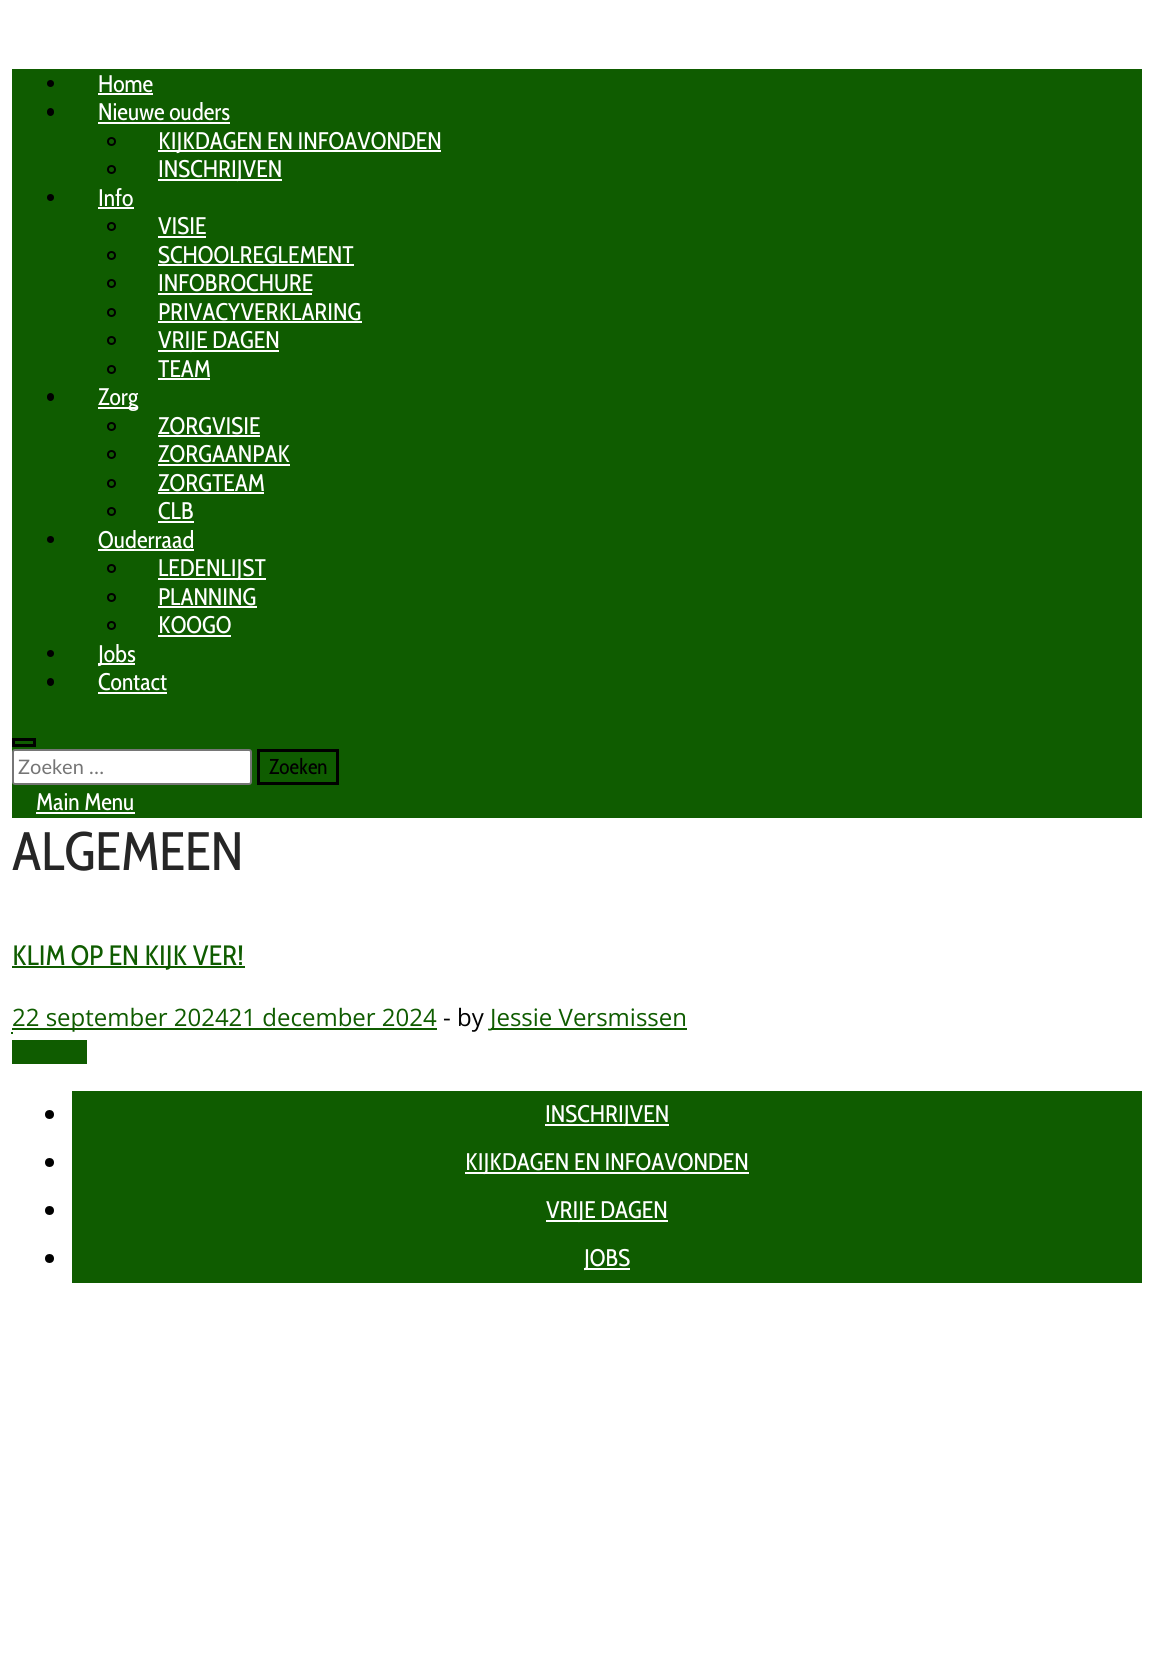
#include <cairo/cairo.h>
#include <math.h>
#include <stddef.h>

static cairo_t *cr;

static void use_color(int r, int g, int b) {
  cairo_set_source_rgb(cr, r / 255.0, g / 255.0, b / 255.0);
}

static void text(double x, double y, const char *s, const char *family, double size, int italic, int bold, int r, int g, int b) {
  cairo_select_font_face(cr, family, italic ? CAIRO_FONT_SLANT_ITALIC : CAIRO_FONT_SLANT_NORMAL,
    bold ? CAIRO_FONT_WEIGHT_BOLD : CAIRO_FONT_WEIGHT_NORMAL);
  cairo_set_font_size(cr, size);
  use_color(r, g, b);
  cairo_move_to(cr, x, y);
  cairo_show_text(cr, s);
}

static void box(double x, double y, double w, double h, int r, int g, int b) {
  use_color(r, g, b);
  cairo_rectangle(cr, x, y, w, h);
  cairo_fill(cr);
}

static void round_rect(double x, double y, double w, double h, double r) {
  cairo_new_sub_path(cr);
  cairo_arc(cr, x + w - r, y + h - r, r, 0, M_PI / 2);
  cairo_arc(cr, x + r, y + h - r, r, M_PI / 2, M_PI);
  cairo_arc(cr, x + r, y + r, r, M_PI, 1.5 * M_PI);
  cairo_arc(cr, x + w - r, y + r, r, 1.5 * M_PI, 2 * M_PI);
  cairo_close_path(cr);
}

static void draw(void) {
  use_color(255, 255, 255);
  cairo_paint(cr);
  box(12, 69, 1130, 749, 15, 92, 0);
  use_color(0, 0, 0);
  cairo_arc(cr, 50.5, 83.5, 3.5, 0, 2 * M_PI);
  cairo_fill(cr);
  box(98, 93, 55, 2, 255, 255, 255);
  use_color(0, 0, 0);
  round_rect(47, 108, 7, 8, 3.5);
  cairo_fill(cr);
  box(98, 122, 132, 2, 255, 255, 255);
  cairo_arc(cr, 111.5, 141.5, 3.5, 0, 2 * M_PI);
  use_color(0, 0, 0);
  cairo_stroke(cr);
  box(158, 150, 283, 2, 255, 255, 255);
  cairo_arc(cr, 111.5, 169.5, 3.5, 0, 2 * M_PI);
  use_color(0, 0, 0);
  cairo_stroke(cr);
  box(158, 179, 124, 2, 255, 255, 255);
  use_color(0, 0, 0);
  cairo_arc(cr, 50.5, 197.5, 3.5, 0, 2 * M_PI);
  cairo_fill(cr);
  box(98, 207, 36, 2, 255, 255, 255);
  cairo_arc(cr, 111.5, 226.5, 3.5, 0, 2 * M_PI);
  use_color(0, 0, 0);
  cairo_stroke(cr);
  box(158, 236, 48, 2, 255, 255, 255);
  cairo_arc(cr, 111.5, 255.5, 3.5, 0, 2 * M_PI);
  use_color(0, 0, 0);
  cairo_stroke(cr);
  box(158, 264, 196, 2, 255, 255, 255);
  cairo_arc(cr, 111.5, 283.5, 3.5, 0, 2 * M_PI);
  use_color(0, 0, 0);
  cairo_stroke(cr);
  box(158, 293, 154, 2, 255, 255, 255);
  cairo_arc(cr, 111.5, 312.5, 3.5, 0, 2 * M_PI);
  use_color(0, 0, 0);
  cairo_stroke(cr);
  box(158, 321, 204, 2, 255, 255, 255);
  cairo_arc(cr, 111.5, 340.5, 3.5, 0, 2 * M_PI);
  use_color(0, 0, 0);
  cairo_stroke(cr);
  box(158, 350, 121, 2, 255, 255, 255);
  cairo_arc(cr, 111.5, 369.5, 3.5, 0, 2 * M_PI);
  use_color(0, 0, 0);
  cairo_stroke(cr);
  box(158, 378, 52, 2, 255, 255, 255);
  use_color(0, 0, 0);
  round_rect(47, 393, 7, 8, 3.5);
  cairo_fill(cr);
  box(98, 407, 40, 2, 255, 255, 255);
  cairo_arc(cr, 111.5, 426.5, 3.5, 0, 2 * M_PI);
  use_color(0, 0, 0);
  cairo_stroke(cr);
  box(158, 435, 102, 2, 255, 255, 255);
  cairo_arc(cr, 111.5, 454.5, 3.5, 0, 2 * M_PI);
  use_color(0, 0, 0);
  cairo_stroke(cr);
  box(158, 464, 132, 2, 255, 255, 255);
  cairo_arc(cr, 111.5, 483.5, 3.5, 0, 2 * M_PI);
  use_color(0, 0, 0);
  cairo_stroke(cr);
  box(158, 492, 106, 2, 255, 255, 255);
  cairo_arc(cr, 111.5, 511.5, 3.5, 0, 2 * M_PI);
  use_color(0, 0, 0);
  cairo_stroke(cr);
  box(158, 521, 36, 2, 255, 255, 255);
  use_color(0, 0, 0);
  cairo_arc(cr, 50.5, 539.5, 3.5, 0, 2 * M_PI);
  cairo_fill(cr);
  box(98, 549, 96, 2, 255, 255, 255);
  cairo_arc(cr, 111.5, 568.5, 3.5, 0, 2 * M_PI);
  use_color(0, 0, 0);
  cairo_stroke(cr);
  box(158, 578, 108, 2, 255, 255, 255);
  cairo_arc(cr, 111.5, 597.5, 3.5, 0, 2 * M_PI);
  use_color(0, 0, 0);
  cairo_stroke(cr);
  box(158, 606, 99, 2, 255, 255, 255);
  cairo_arc(cr, 111.5, 625.5, 3.5, 0, 2 * M_PI);
  use_color(0, 0, 0);
  cairo_stroke(cr);
  box(158, 635, 73, 2, 255, 255, 255);
  use_color(0, 0, 0);
  cairo_arc(cr, 50.5, 653.5, 3.5, 0, 2 * M_PI);
  cairo_fill(cr);
  box(98, 663, 37, 2, 255, 255, 255);
  use_color(0, 0, 0);
  round_rect(47, 678, 7, 8, 3.5);
  cairo_fill(cr);
  box(98, 692, 69, 2, 255, 255, 255);
  cairo_rectangle(cr, 13.5, 739.5, 21, 6);
  use_color(0, 0, 0);
  cairo_set_line_width(cr, 3);
  cairo_stroke(cr);
  use_color(255, 255, 255);
  round_rect(13, 750, 238, 34, 2);
  cairo_fill_preserve(cr);
  use_color(118, 118, 118);
  cairo_set_line_width(cr, 2);
  cairo_stroke(cr);
  cairo_rectangle(cr, 258.5, 750.5, 79, 33);
  use_color(0, 0, 0);
  cairo_set_line_width(cr, 3);
  cairo_stroke(cr);
  box(36, 812, 99, 2, 255, 255, 255);
  box(12, 966, 233, 2, 15, 92, 0);
  box(12, 1028, 216, 2, 15, 92, 0);
  box(228, 1028, 209, 2, 15, 92, 0);
  box(491, 1028, 196, 2, 15, 92, 0);
  box(11, 1032, 2, 2, 15, 92, 0);
  box(12, 1040, 75, 24, 15, 92, 0);
  use_color(0, 0, 0);
  cairo_arc(cr, 49.5, 1114.5, 4.5, 0, 2 * M_PI);
  cairo_fill(cr);
  box(72, 1091, 1070, 192, 15, 92, 0);
  box(545, 1124, 124, 2, 255, 255, 255);
  use_color(0, 0, 0);
  cairo_arc(cr, 49.5, 1162.5, 4.5, 0, 2 * M_PI);
  cairo_fill(cr);
  box(465, 1172, 284, 2, 255, 255, 255);
  use_color(0, 0, 0);
  cairo_arc(cr, 49.5, 1210.5, 4.5, 0, 2 * M_PI);
  cairo_fill(cr);
  box(546, 1220, 122, 2, 255, 255, 255);
  use_color(0, 0, 0);
  cairo_arc(cr, 49.5, 1258.5, 4.5, 0, 2 * M_PI);
  cairo_fill(cr);
  box(584, 1268, 46, 2, 255, 255, 255);
  text(98, 92, "Home", "Cabin Condensed", 24, 0, 0, 255, 255, 255);
  text(98, 120, "Nieuwe ouders", "Cabin Condensed", 24, 0, 0, 255, 255, 255);
  text(158, 149, "KIJKDAGEN EN INFOAVONDEN", "Cabin Condensed", 24, 0, 0, 255, 255, 255);
  text(158, 177, "INSCHRIJVEN", "Cabin Condensed", 24, 0, 0, 255, 255, 255);
  text(98, 206, "Info", "Cabin Condensed", 24, 0, 0, 255, 255, 255);
  text(158, 234, "VISIE", "Cabin Condensed", 24, 0, 0, 255, 255, 255);
  text(158, 263, "SCHOOLREGLEMENT", "Cabin Condensed", 24, 0, 0, 255, 255, 255);
  text(158, 291, "INFOBROCHURE", "Cabin Condensed", 24, 0, 0, 255, 255, 255);
  text(158, 320, "PRIVACYVERKLARING", "Cabin Condensed", 24, 0, 0, 255, 255, 255);
  text(158, 348, "VRIJE DAGEN", "Cabin Condensed", 24, 0, 0, 255, 255, 255);
  text(158, 377, "TEAM", "Cabin Condensed", 24, 0, 0, 255, 255, 255);
  text(98, 405, "Zorg", "Cabin Condensed", 24, 0, 0, 255, 255, 255);
  text(158, 434, "ZORGVISIE", "Cabin Condensed", 24, 0, 0, 255, 255, 255);
  text(158, 462, "ZORGAANPAK", "Cabin Condensed", 24, 0, 0, 255, 255, 255);
  text(158, 491, "ZORGTEAM", "Cabin Condensed", 24, 0, 0, 255, 255, 255);
  text(158, 519, "CLB", "Cabin Condensed", 24, 0, 0, 255, 255, 255);
  text(98, 548, "Ouderraad", "Cabin Condensed", 24, 0, 0, 255, 255, 255);
  text(158, 576, "LEDENLIJST", "Cabin Condensed", 24, 0, 0, 255, 255, 255);
  text(158, 605, "PLANNING", "Cabin Condensed", 24, 0, 0, 255, 255, 255);
  text(158, 633, "KOOGO", "Cabin Condensed", 24, 0, 0, 255, 255, 255);
  text(98, 662, "Jobs", "Cabin Condensed", 24, 0, 0, 255, 255, 255);
  text(98, 690, "Contact", "Cabin Condensed", 24, 0, 0, 255, 255, 255);
  text(18, 774, "Zoeken …", "Lato", 20, 0, 0, 117, 117, 117);
  text(269, 774, "Zoeken", "Cabin Condensed", 21.5, 0, 0, 0, 0, 0);
  text(36, 810, "Main Menu", "Cabin Condensed", 24, 0, 0, 255, 255, 255);
  text(12, 870, "ALGEMEEN", "Cabin Condensed", 54, 0, 0, 38, 38, 38);
  text(12, 965, "KLIM OP EN KIJK VER!", "Cabin Condensed", 28, 0, 0, 15, 92, 0);
  text(12, 1026, "22 september 202421 december 2024", "Open Sans", 24, 0, 0, 15, 92, 0);
  text(443, 1026, "- by", "Open Sans", 24, 0, 0, 0, 0, 0);
  text(490, 1026, "Jessie Versmissen", "Open Sans", 24, 0, 0, 15, 92, 0);
  text(545, 1122, "INSCHRIJVEN", "Cabin Condensed", 24, 0, 0, 255, 255, 255);
  text(465, 1170, "KIJKDAGEN EN INFOAVONDEN", "Cabin Condensed", 24, 0, 0, 255, 255, 255);
  text(546, 1218, "VRIJE DAGEN", "Cabin Condensed", 24, 0, 0, 255, 255, 255);
  text(584, 1266, "JOBS", "Cabin Condensed", 24, 0, 0, 255, 255, 255);
}

int main(void) {
  cairo_surface_t *surface = cairo_image_surface_create(CAIRO_FORMAT_RGB24, 1153, 1667);
  cr = cairo_create(surface);
  cairo_font_options_t *options = cairo_font_options_create();
  cairo_font_options_set_hint_metrics(options, CAIRO_HINT_METRICS_OFF);
  cairo_font_options_set_hint_style(options, CAIRO_HINT_STYLE_NONE);
  cairo_set_font_options(cr, options);
  cairo_set_miter_limit(cr, 4);
  draw();
  cairo_surface_write_to_png(surface, "out.png");
  cairo_font_options_destroy(options);
  cairo_destroy(cr);
  cairo_surface_destroy(surface);
  return 0;
}
